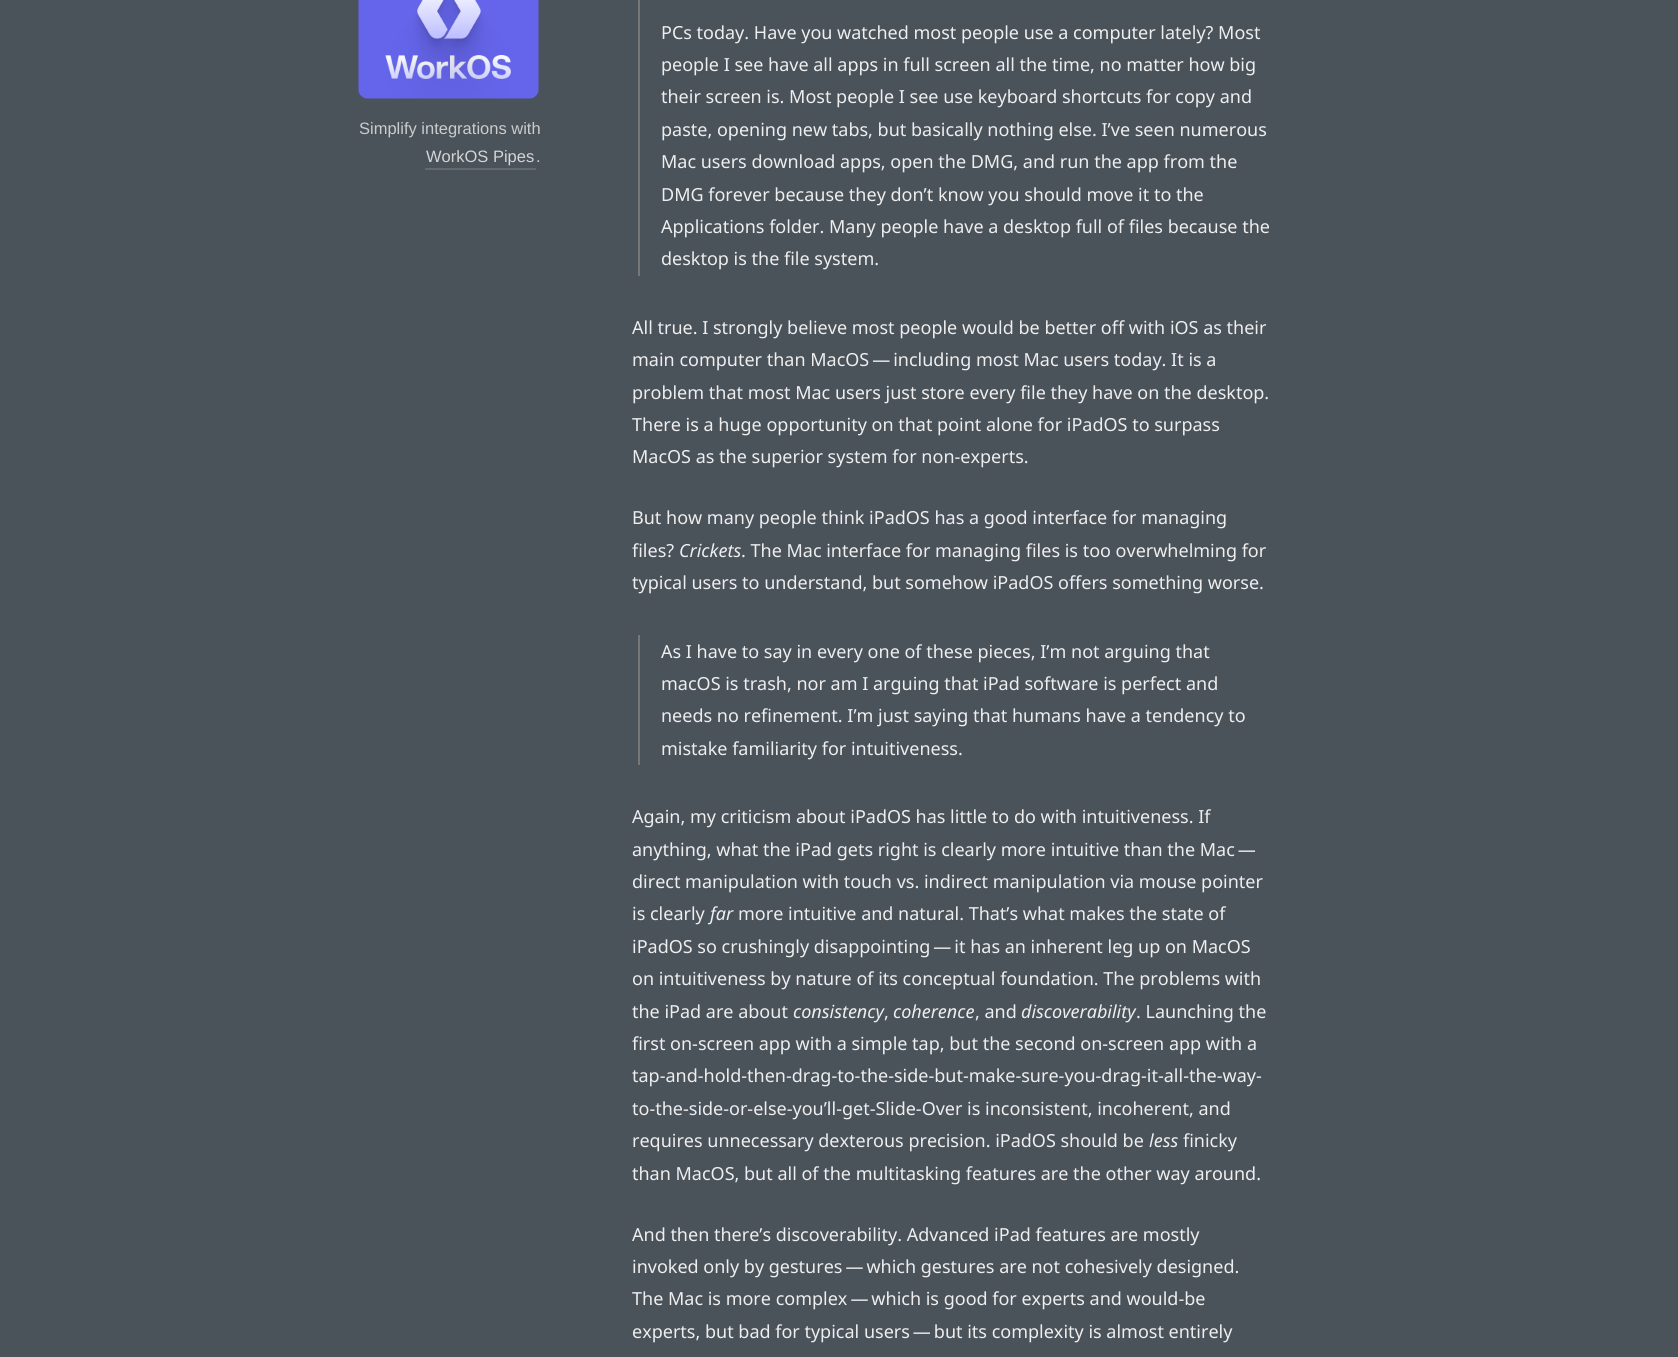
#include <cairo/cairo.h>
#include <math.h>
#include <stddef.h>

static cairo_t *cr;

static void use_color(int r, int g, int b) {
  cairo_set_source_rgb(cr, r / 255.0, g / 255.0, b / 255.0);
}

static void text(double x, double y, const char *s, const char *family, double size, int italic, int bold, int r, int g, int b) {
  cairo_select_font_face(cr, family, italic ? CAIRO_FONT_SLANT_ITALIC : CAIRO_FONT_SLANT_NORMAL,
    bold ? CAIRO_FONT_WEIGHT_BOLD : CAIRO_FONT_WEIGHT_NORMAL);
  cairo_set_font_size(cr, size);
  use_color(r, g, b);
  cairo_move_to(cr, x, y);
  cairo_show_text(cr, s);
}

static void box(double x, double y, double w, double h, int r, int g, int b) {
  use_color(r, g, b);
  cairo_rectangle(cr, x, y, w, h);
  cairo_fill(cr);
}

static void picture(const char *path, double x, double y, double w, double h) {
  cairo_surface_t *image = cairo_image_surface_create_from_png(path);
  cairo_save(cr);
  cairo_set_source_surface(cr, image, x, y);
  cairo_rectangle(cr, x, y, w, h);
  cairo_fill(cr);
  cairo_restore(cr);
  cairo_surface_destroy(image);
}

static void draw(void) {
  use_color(74, 82, 90);
  cairo_paint(cr);
  picture("img_01.png", 358, 0, 181, 99);
  box(425, 168, 111, 2, 98, 106, 115);
  box(638, 0, 2, 276, 119, 119, 119);
  box(638, 635, 2, 130, 119, 119, 119);
  text(359, 134, "Simplify integrations with", "Liberation Sans", 16.5, 0, 0, 204, 204, 204);
  text(426, 162, "WorkOS Pipes", "Liberation Sans", 16.5, 0, 0, 213, 213, 213);
  text(536, 162, ".", "Liberation Sans", 16.5, 0, 0, 204, 204, 204);
  text(661, 39, "PCs today. Have you watched most people use a computer lately? Most", "Noto Sans", 18, 0, 0, 238, 238, 238);
  text(661, 71, "people I see have all apps in full screen all the time, no matter how big", "Noto Sans", 18, 0, 0, 238, 238, 238);
  text(661, 103, "their screen is. Most people I see use keyboard shortcuts for copy and", "Noto Sans", 18, 0, 0, 238, 238, 238);
  text(661, 136, "paste, opening new tabs, but basically nothing else. I’ve seen numerous", "Noto Sans", 18, 0, 0, 238, 238, 238);
  text(661, 168, "Mac users download apps, open the DMG, and run the app from the", "Noto Sans", 18, 0, 0, 238, 238, 238);
  text(661, 201, "DMG forever because they don’t know you should move it to the", "Noto Sans", 18, 0, 0, 238, 238, 238);
  text(661, 233, "Applications folder. Many people have a desktop full of files because the", "Noto Sans", 18, 0, 0, 238, 238, 238);
  text(661, 265, "desktop is the file system.", "Noto Sans", 18, 0, 0, 238, 238, 238);
  text(632, 334, "All true. I strongly believe most people would be better off with iOS as their", "Noto Sans", 18, 0, 0, 238, 238, 238);
  text(632, 366, "main computer than MacOS — including most Mac users today. It is a", "Noto Sans", 18, 0, 0, 238, 238, 238);
  text(632, 399, "problem that most Mac users just store every file they have on the desktop.", "Noto Sans", 18, 0, 0, 238, 238, 238);
  text(632, 431, "There is a huge opportunity on that point alone for iPadOS to surpass", "Noto Sans", 18, 0, 0, 238, 238, 238);
  text(632, 463, "MacOS as the superior system for non-experts.", "Noto Sans", 18, 0, 0, 238, 238, 238);
  text(632, 524, "But how many people think iPadOS has a good interface for managing", "Noto Sans", 18, 0, 0, 238, 238, 238);
  text(632, 557, "files?", "Noto Sans", 18, 0, 0, 238, 238, 238);
  text(679, 557, "Crickets", "Noto Sans", 18, 1, 0, 238, 238, 238);
  text(741, 557, ". The Mac interface for managing files is too overwhelming for", "Noto Sans", 18, 0, 0, 238, 238, 238);
  text(632, 589, "typical users to understand, but somehow iPadOS offers something worse.", "Noto Sans", 18, 0, 0, 238, 238, 238);
  text(661, 658, "As I have to say in every one of these pieces, I’m not arguing that", "Noto Sans", 18, 0, 0, 238, 238, 238);
  text(661, 690, "macOS is trash, nor am I arguing that iPad software is perfect and", "Noto Sans", 18, 0, 0, 238, 238, 238);
  text(661, 722, "needs no refinement. I’m just saying that humans have a tendency to", "Noto Sans", 18, 0, 0, 238, 238, 238);
  text(661, 755, "mistake familiarity for intuitiveness.", "Noto Sans", 18, 0, 0, 238, 238, 238);
  text(632, 823, "Again, my criticism about iPadOS has little to do with intuitiveness. If", "Noto Sans", 18, 0, 0, 238, 238, 238);
  text(632, 856, "anything, what the iPad gets right is clearly more intuitive than the Mac —", "Noto Sans", 18, 0, 0, 238, 238, 238);
  text(632, 888, "direct manipulation with touch vs. indirect manipulation via mouse pointer", "Noto Sans", 18, 0, 0, 238, 238, 238);
  text(632, 920, "is clearly", "Noto Sans", 18, 0, 0, 238, 238, 238);
  text(710, 920, "far", "Noto Sans", 18, 1, 0, 238, 238, 238);
  text(738, 920, "more intuitive and natural. That’s what makes the state of", "Noto Sans", 18, 0, 0, 238, 238, 238);
  text(632, 953, "iPadOS so crushingly disappointing — it has an inherent leg up on MacOS", "Noto Sans", 18, 0, 0, 238, 238, 238);
  text(632, 985, "on intuitiveness by nature of its conceptual foundation. The problems with", "Noto Sans", 18, 0, 0, 238, 238, 238);
  text(632, 1018, "the iPad are about", "Noto Sans", 18, 0, 0, 238, 238, 238);
  text(793, 1018, "consistency", "Noto Sans", 18, 1, 0, 238, 238, 238);
  text(884, 1018, ",", "Noto Sans", 18, 0, 0, 238, 238, 238);
  text(893, 1018, "coherence", "Noto Sans", 18, 1, 0, 238, 238, 238);
  text(975, 1018, ", and", "Noto Sans", 18, 0, 0, 238, 238, 238);
  text(1021, 1018, "discoverability", "Noto Sans", 18, 1, 0, 238, 238, 238);
  text(1136, 1018, ". Launching the", "Noto Sans", 18, 0, 0, 238, 238, 238);
  text(632, 1050, "first on-screen app with a simple tap, but the second on-screen app with a", "Noto Sans", 18, 0, 0, 238, 238, 238);
  text(632, 1082, "tap-and-hold-then-drag-to-the-side-but-make-sure-you-drag-it-all-the-way-", "Noto Sans", 18, 0, 0, 238, 238, 238);
  text(632, 1115, "to-the-side-or-else-you’ll-get-Slide-Over is inconsistent, incoherent, and", "Noto Sans", 18, 0, 0, 238, 238, 238);
  text(632, 1147, "requires unnecessary dexterous precision. iPadOS should be", "Noto Sans", 18, 0, 0, 238, 238, 238);
  text(1149, 1147, "less", "Noto Sans", 18, 1, 0, 238, 238, 238);
  text(1183, 1147, "finicky", "Noto Sans", 18, 0, 0, 238, 238, 238);
  text(632, 1180, "than MacOS, but all of the multitasking features are the other way around.", "Noto Sans", 18, 0, 0, 238, 238, 238);
  text(632, 1241, "And then there’s discoverability. Advanced iPad features are mostly", "Noto Sans", 18, 0, 0, 238, 238, 238);
  text(632, 1273, "invoked only by gestures — which gestures are not cohesively designed.", "Noto Sans", 18, 0, 0, 238, 238, 238);
  text(632, 1305, "The Mac is more complex — which is good for experts and would-be", "Noto Sans", 18, 0, 0, 238, 238, 238);
  text(632, 1338, "experts, but bad for typical users — but its complexity is almost entirely", "Noto Sans", 18, 0, 0, 238, 238, 238);
}

int main(void) {
  cairo_surface_t *surface = cairo_image_surface_create(CAIRO_FORMAT_RGB24, 1678, 1357);
  cr = cairo_create(surface);
  cairo_font_options_t *options = cairo_font_options_create();
  cairo_font_options_set_hint_metrics(options, CAIRO_HINT_METRICS_OFF);
  cairo_font_options_set_hint_style(options, CAIRO_HINT_STYLE_NONE);
  cairo_set_font_options(cr, options);
  cairo_set_miter_limit(cr, 4);
  draw();
  cairo_surface_write_to_png(surface, "out.png");
  cairo_font_options_destroy(options);
  cairo_destroy(cr);
  cairo_surface_destroy(surface);
  return 0;
}
